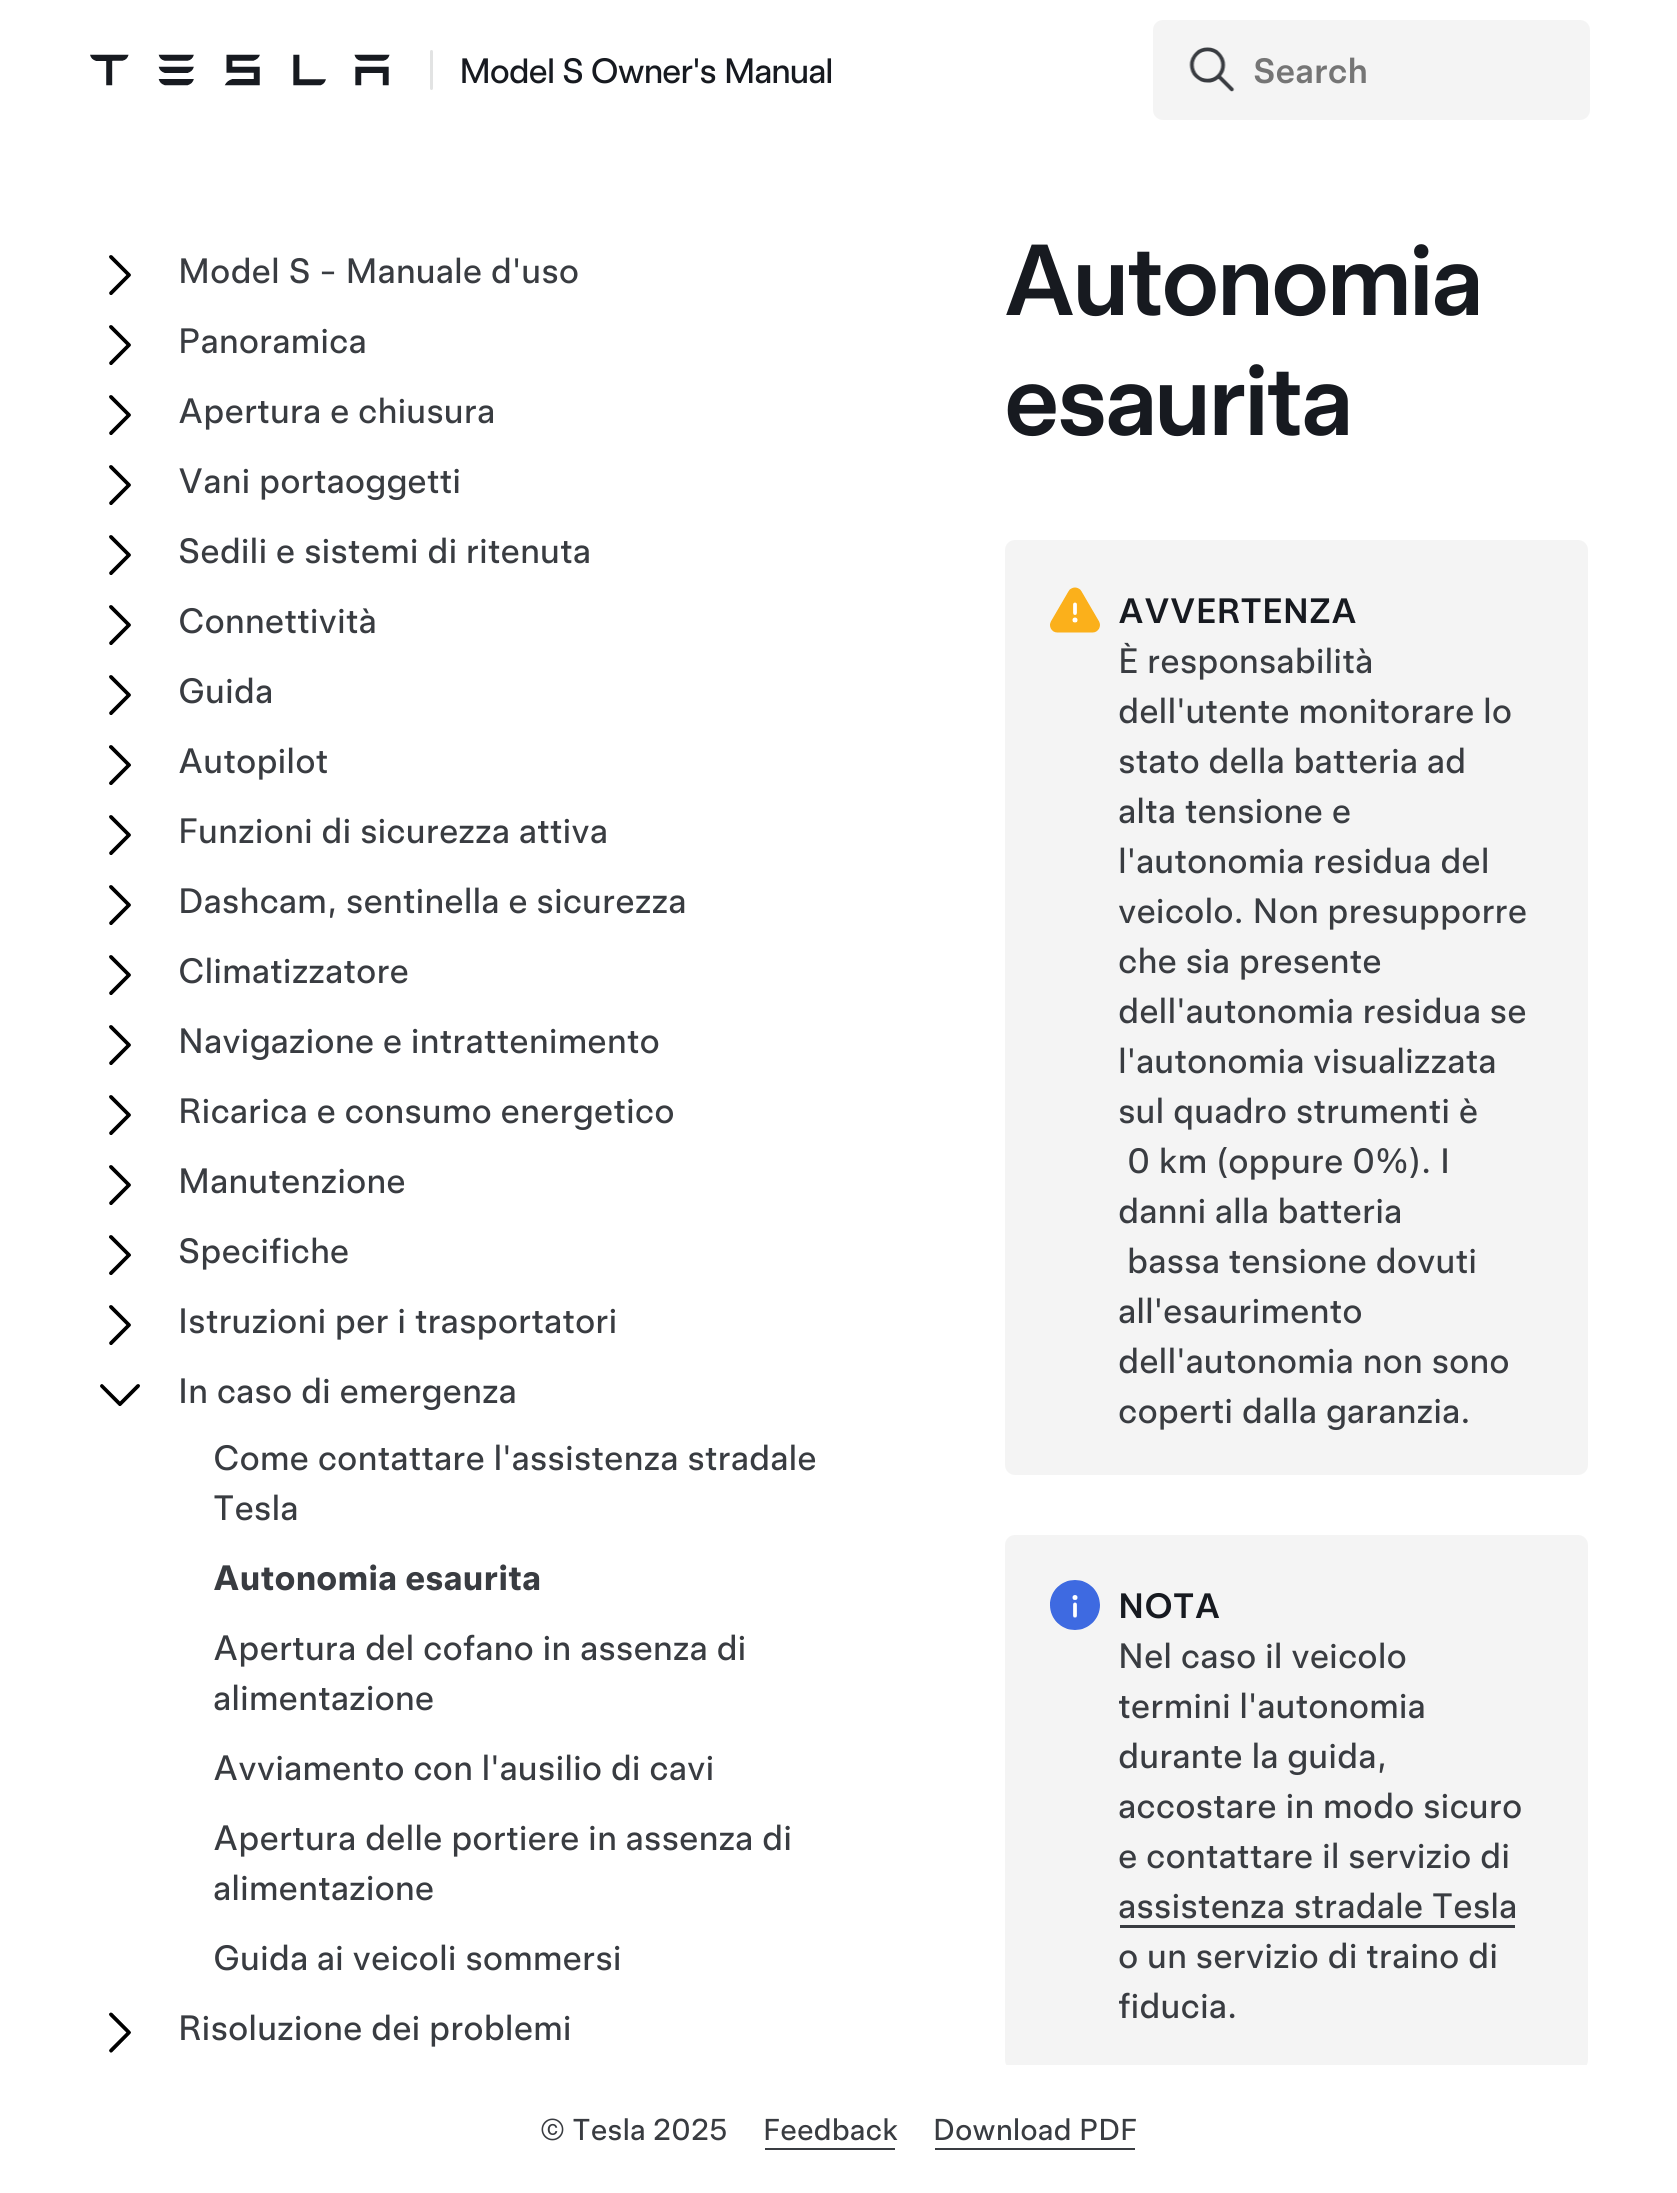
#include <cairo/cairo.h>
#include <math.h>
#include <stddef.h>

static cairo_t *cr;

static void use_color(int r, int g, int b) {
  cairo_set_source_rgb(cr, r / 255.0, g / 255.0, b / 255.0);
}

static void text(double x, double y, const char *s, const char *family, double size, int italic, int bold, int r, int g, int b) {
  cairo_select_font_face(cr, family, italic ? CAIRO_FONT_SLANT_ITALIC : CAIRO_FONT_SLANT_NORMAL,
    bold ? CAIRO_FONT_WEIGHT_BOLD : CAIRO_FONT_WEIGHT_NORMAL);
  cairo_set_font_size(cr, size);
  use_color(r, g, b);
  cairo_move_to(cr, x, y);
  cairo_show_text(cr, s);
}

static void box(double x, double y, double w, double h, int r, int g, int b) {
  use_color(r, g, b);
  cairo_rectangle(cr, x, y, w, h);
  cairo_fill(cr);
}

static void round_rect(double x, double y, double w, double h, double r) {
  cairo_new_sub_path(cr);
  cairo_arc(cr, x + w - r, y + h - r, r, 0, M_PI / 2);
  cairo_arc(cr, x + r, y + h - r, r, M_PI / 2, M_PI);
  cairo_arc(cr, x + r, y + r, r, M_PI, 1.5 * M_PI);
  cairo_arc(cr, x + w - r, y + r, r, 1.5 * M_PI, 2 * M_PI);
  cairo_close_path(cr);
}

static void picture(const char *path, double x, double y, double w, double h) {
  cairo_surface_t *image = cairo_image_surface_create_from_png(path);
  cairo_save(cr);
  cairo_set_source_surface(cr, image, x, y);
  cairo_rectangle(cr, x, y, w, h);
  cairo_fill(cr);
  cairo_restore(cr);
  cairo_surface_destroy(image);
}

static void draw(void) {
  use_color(255, 255, 255);
  cairo_paint(cr);
  picture("img_01.png", 90, 54, 300, 32);
  use_color(226, 227, 227);
  round_rect(430, 50, 3, 40, 1.5);
  cairo_fill(cr);
  use_color(244, 244, 244);
  round_rect(1154.5, 21.5, 434, 97, 8.5);
  cairo_fill_preserve(cr);
  cairo_set_line_width(cr, 3);
  cairo_stroke(cr);
  picture("img_02.png", 1189, 47, 46, 45);
  picture("img_03.png", 109, 255, 22, 40);
  picture("img_04.png", 109, 325, 22, 40);
  picture("img_04.png", 109, 395, 22, 40);
  picture("img_04.png", 109, 465, 22, 40);
  picture("img_04.png", 109, 535, 22, 40);
  picture("img_04.png", 109, 605, 22, 40);
  picture("img_04.png", 109, 675, 22, 40);
  picture("img_05.png", 109, 745, 22, 40);
  picture("img_04.png", 109, 815, 22, 40);
  picture("img_04.png", 109, 885, 22, 40);
  picture("img_04.png", 109, 955, 22, 40);
  picture("img_04.png", 109, 1025, 22, 40);
  picture("img_04.png", 109, 1095, 22, 40);
  picture("img_04.png", 109, 1165, 22, 40);
  picture("img_06.png", 109, 1235, 22, 40);
  picture("img_04.png", 109, 1305, 22, 40);
  picture("img_07.png", 100, 1384, 40, 22);
  picture("img_08.png", 109, 2012, 22, 41);
  round_rect(1005, 540, 583, 935, 10);
  cairo_fill(cr);
  picture("img_09.png", 1050, 587, 50, 46);
  round_rect(1005, 1535, 583, 535, 10);
  cairo_fill(cr);
  picture("img_10.png", 1050, 1580, 50, 50);
  box(1120, 1925, 395, 3, 57, 60, 65);
  box(1006, 2065, 581, 5, 255, 255, 255);
  box(765, 2148, 130, 2, 57, 60, 65);
  box(935, 2148, 200, 2, 57, 60, 65);
  text(460, 83, "Model S Owner's Manual", "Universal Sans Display", 35, 0, 0, 23, 26, 32);
  text(1253, 83, "Search", "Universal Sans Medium", 35, 0, 0, 117, 117, 117);
  text(178, 283, "Model S - Manuale d'uso", "Universal Sans", 35, 0, 0, 57, 60, 65);
  text(178, 353, "Panoramica", "Universal Sans", 35, 0, 0, 57, 60, 65);
  text(178, 423, "Apertura e chiusura", "Universal Sans", 35, 0, 0, 57, 60, 65);
  text(178, 493, "Vani portaoggetti", "Universal Sans", 35, 0, 0, 57, 60, 65);
  text(178, 563, "Sedili e sistemi di ritenuta", "Universal Sans", 35, 0, 0, 57, 60, 65);
  text(178, 633, "Connettività", "Universal Sans", 35, 0, 0, 57, 60, 65);
  text(178, 703, "Guida", "Universal Sans", 35, 0, 0, 57, 60, 65);
  text(178, 773, "Autopilot", "Universal Sans", 35, 0, 0, 57, 60, 65);
  text(178, 843, "Funzioni di sicurezza attiva", "Universal Sans", 35, 0, 0, 57, 60, 65);
  text(178, 913, "Dashcam, sentinella e sicurezza", "Universal Sans", 35, 0, 0, 57, 60, 65);
  text(178, 983, "Climatizzatore", "Universal Sans", 35, 0, 0, 57, 60, 65);
  text(178, 1053, "Navigazione e intrattenimento", "Universal Sans", 35, 0, 0, 57, 60, 65);
  text(178, 1123, "Ricarica e consumo energetico", "Universal Sans", 35, 0, 0, 57, 60, 65);
  text(178, 1193, "Manutenzione", "Universal Sans", 35, 0, 0, 57, 60, 65);
  text(178, 1263, "Specifiche", "Universal Sans", 35, 0, 0, 57, 60, 65);
  text(178, 1333, "Istruzioni per i trasportatori", "Universal Sans", 35, 0, 0, 57, 60, 65);
  text(178, 1403, "In caso di emergenza", "Universal Sans", 35, 0, 0, 57, 60, 65);
  text(213, 1470, "Come contattare l'assistenza stradale", "Universal Sans", 35, 0, 0, 57, 60, 65);
  text(213, 1520, "Tesla", "Universal Sans", 35, 0, 0, 57, 60, 65);
  text(213, 1590, "Autonomia esaurita", "Universal Sans", 35, 0, 1, 57, 60, 65);
  text(213, 1660, "Apertura del cofano in assenza di", "Universal Sans", 35, 0, 0, 57, 60, 65);
  text(213, 1710, "alimentazione", "Universal Sans", 35, 0, 0, 57, 60, 65);
  text(213, 1780, "Avviamento con l'ausilio di cavi", "Universal Sans", 35, 0, 0, 57, 60, 65);
  text(213, 1850, "Apertura delle portiere in assenza di", "Universal Sans", 35, 0, 0, 57, 60, 65);
  text(213, 1900, "alimentazione", "Universal Sans", 35, 0, 0, 57, 60, 65);
  text(213, 1970, "Guida ai veicoli sommersi", "Universal Sans", 35, 0, 0, 57, 60, 65);
  text(178, 2040, "Risoluzione dei problemi", "Universal Sans", 35, 0, 0, 57, 60, 65);
  text(1005, 315, "Autonomia", "Universal Sans Display Medium", 100, 0, 0, 23, 26, 32);
  text(1005, 435, "esaurita", "Universal Sans Display Medium", 100, 0, 0, 23, 26, 32);
  text(1118, 623, "AVVERTENZA", "Universal Sans Medium", 35, 0, 0, 23, 26, 32);
  text(1118, 673, "È responsabilità", "Universal Sans", 35, 0, 0, 57, 60, 65);
  text(1118, 723, "dell'utente monitorare lo", "Universal Sans", 35, 0, 0, 57, 60, 65);
  text(1118, 773, "stato della batteria ad", "Universal Sans", 35, 0, 0, 57, 60, 65);
  text(1118, 823, "alta tensione e", "Universal Sans", 35, 0, 0, 57, 60, 65);
  text(1118, 873, "l'autonomia residua del", "Universal Sans", 35, 0, 0, 57, 60, 65);
  text(1118, 923, "veicolo. Non presupporre", "Universal Sans", 35, 0, 0, 57, 60, 65);
  text(1118, 973, "che sia presente", "Universal Sans", 35, 0, 0, 57, 60, 65);
  text(1118, 1023, "dell'autonomia residua se", "Universal Sans", 35, 0, 0, 57, 60, 65);
  text(1118, 1073, "l'autonomia visualizzata", "Universal Sans", 35, 0, 0, 57, 60, 65);
  text(1118, 1123, "sul quadro strumenti è", "Universal Sans", 35, 0, 0, 57, 60, 65);
  text(1127, 1173, "0 km (oppure 0%). I", "Universal Sans", 35, 0, 0, 57, 60, 65);
  text(1118, 1223, "danni alla batteria", "Universal Sans", 35, 0, 0, 57, 60, 65);
  text(1127, 1273, "bassa tensione dovuti", "Universal Sans", 35, 0, 0, 57, 60, 65);
  text(1118, 1323, "all'esaurimento", "Universal Sans", 35, 0, 0, 57, 60, 65);
  text(1118, 1373, "dell'autonomia non sono", "Universal Sans", 35, 0, 0, 57, 60, 65);
  text(1118, 1423, "coperti dalla garanzia.", "Universal Sans", 35, 0, 0, 57, 60, 65);
  text(1118, 1618, "NOTA", "Universal Sans Medium", 35, 0, 0, 23, 26, 32);
  text(1118, 1668, "Nel caso il veicolo", "Universal Sans", 35, 0, 0, 57, 60, 65);
  text(1118, 1718, "termini l'autonomia", "Universal Sans", 35, 0, 0, 57, 60, 65);
  text(1118, 1768, "durante la guida,", "Universal Sans", 35, 0, 0, 57, 60, 65);
  text(1118, 1818, "accostare in modo sicuro", "Universal Sans", 35, 0, 0, 57, 60, 65);
  text(1118, 1868, "e contattare il servizio di", "Universal Sans", 35, 0, 0, 57, 60, 65);
  text(1118, 1918, "assistenza stradale Tesla", "Universal Sans", 35, 0, 0, 57, 60, 65);
  text(1118, 1968, "o un servizio di traino di", "Universal Sans", 35, 0, 0, 57, 60, 65);
  text(1118, 2018, "fiducia.", "Universal Sans", 35, 0, 0, 57, 60, 65);
  text(540, 2140, "© Tesla 2025", "Universal Sans", 30, 0, 0, 57, 60, 65);
  text(763, 2140, "Feedback", "Universal Sans", 30, 0, 0, 57, 60, 65);
  text(933, 2140, "Download PDF", "Universal Sans", 30, 0, 0, 57, 60, 65);
}

int main(void) {
  cairo_surface_t *surface = cairo_image_surface_create(CAIRO_FORMAT_RGB24, 1677, 2193);
  cr = cairo_create(surface);
  cairo_font_options_t *options = cairo_font_options_create();
  cairo_font_options_set_hint_metrics(options, CAIRO_HINT_METRICS_OFF);
  cairo_font_options_set_hint_style(options, CAIRO_HINT_STYLE_NONE);
  cairo_set_font_options(cr, options);
  cairo_set_miter_limit(cr, 4);
  draw();
  cairo_surface_write_to_png(surface, "out.png");
  cairo_font_options_destroy(options);
  cairo_destroy(cr);
  cairo_surface_destroy(surface);
  return 0;
}
